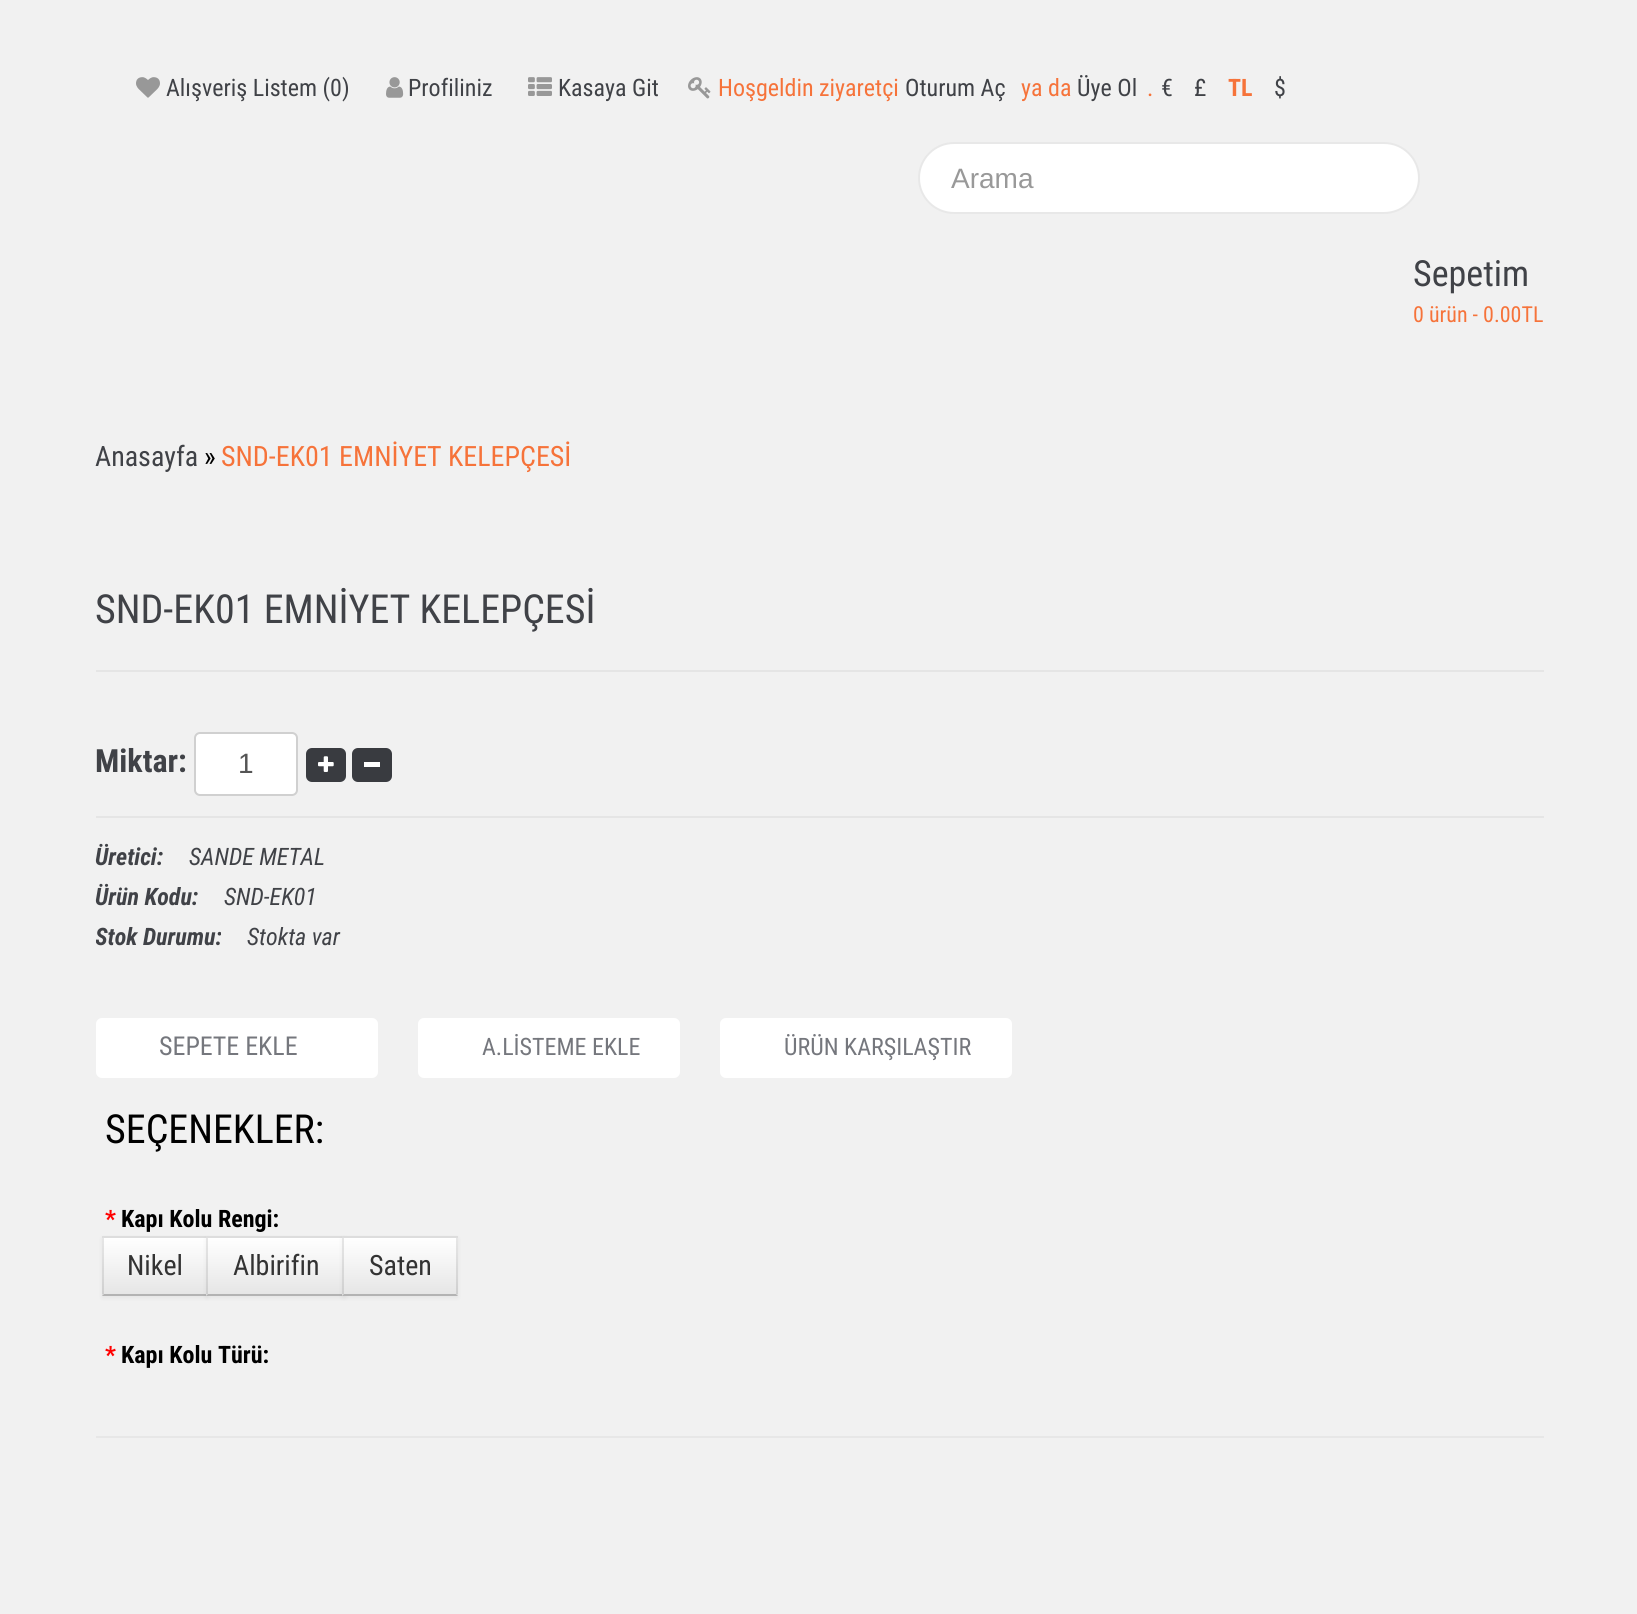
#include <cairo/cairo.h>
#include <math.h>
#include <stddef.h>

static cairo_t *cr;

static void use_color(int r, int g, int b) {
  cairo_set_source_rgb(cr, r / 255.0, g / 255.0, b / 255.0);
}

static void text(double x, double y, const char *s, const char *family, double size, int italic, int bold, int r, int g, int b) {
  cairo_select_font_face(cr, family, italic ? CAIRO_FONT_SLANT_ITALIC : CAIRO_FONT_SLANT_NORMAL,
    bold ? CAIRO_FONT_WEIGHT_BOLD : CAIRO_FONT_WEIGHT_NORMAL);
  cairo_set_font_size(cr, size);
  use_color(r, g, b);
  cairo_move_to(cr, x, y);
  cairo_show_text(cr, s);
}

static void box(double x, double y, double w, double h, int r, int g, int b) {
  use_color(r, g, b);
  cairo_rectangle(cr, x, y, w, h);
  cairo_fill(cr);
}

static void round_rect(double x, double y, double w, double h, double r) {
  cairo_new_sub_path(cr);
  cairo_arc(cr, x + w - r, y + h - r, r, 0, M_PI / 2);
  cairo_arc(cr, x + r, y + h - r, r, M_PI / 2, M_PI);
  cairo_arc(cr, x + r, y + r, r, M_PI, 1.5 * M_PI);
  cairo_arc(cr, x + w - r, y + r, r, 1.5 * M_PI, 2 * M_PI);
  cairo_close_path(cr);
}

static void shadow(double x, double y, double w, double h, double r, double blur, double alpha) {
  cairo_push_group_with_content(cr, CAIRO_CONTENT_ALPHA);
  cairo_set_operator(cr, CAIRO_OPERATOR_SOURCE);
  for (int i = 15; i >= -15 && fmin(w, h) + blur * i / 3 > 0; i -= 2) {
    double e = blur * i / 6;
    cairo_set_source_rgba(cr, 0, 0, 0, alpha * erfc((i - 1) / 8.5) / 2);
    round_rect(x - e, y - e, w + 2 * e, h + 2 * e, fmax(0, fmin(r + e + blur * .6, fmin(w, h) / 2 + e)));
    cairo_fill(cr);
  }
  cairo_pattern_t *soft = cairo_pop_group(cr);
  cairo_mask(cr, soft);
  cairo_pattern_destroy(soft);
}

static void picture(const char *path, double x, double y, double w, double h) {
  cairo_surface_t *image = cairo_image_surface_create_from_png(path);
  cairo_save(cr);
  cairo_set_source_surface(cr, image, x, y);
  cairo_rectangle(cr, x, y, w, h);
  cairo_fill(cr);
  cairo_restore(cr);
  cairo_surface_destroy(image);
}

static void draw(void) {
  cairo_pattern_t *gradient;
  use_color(241, 241, 241);
  cairo_paint(cr);
  picture("img_01.png", 136, 77, 24, 21);
  picture("img_02.png", 386, 77, 18, 21);
  picture("img_03.png", 528, 77, 24, 19);
  picture("img_04.png", 688, 77, 23, 22);
  use_color(255, 255, 255);
  round_rect(919, 143, 500, 70, 35);
  cairo_fill_preserve(cr);
  use_color(232, 232, 232);
  cairo_stroke(cr);
  box(96, 670, 1448, 2, 229, 229, 229);
  box(96, 816, 1448, 2, 229, 229, 229);
  use_color(255, 255, 255);
  round_rect(195, 733, 102, 62, 5);
  cairo_fill_preserve(cr);
  use_color(208, 208, 208);
  cairo_stroke(cr);
  use_color(57, 59, 64);
  round_rect(306, 748, 40, 34, 6);
  cairo_fill(cr);
  picture("img_05.png", 318, 756, 16, 16);
  round_rect(352, 748, 40, 34, 6);
  cairo_fill(cr);
  box(364, 762, 16, 5, 255, 255, 255);
  round_rect(96, 1018, 282, 60, 6);
  cairo_fill(cr);
  round_rect(418, 1018, 262, 60, 6);
  cairo_fill(cr);
  round_rect(720, 1018, 292, 60, 6);
  cairo_fill(cr);
  box(96, 1436, 1448, 2, 231, 231, 231);
  use_color(0, 0, 0);
  shadow(102, 1238, 106, 60, 0, 2, 0.05);
  box(102, 1236, 2, 60, 245, 245, 245);
  gradient = cairo_pattern_create_linear(155, 1238, 155, 1294);
  cairo_pattern_add_color_stop_rgba(gradient, 0, 1, 1, 1, 1);
  cairo_pattern_add_color_stop_rgba(gradient, 1, 0.902, 0.902, 0.902, 1);
  cairo_set_source(cr, gradient);
  cairo_pattern_destroy(gradient);
  cairo_rectangle(cr, 102, 1238, 104, 56);
  cairo_fill(cr);
  use_color(221, 221, 221);
  cairo_new_path(cr);
  cairo_move_to(cr, 102, 1236);
  cairo_line_to(cr, 208, 1236);
  cairo_line_to(cr, 206, 1238);
  cairo_line_to(cr, 104, 1238);
  cairo_close_path(cr);
  cairo_fill(cr);
  use_color(179, 179, 179);
  cairo_new_path(cr);
  cairo_move_to(cr, 208, 1296);
  cairo_line_to(cr, 102, 1296);
  cairo_line_to(cr, 104, 1294);
  cairo_line_to(cr, 206, 1294);
  cairo_close_path(cr);
  cairo_fill(cr);
  cairo_set_source_rgba(cr, 0, 0, 0, 0.1);
  cairo_new_path(cr);
  cairo_move_to(cr, 102, 1296);
  cairo_line_to(cr, 102, 1236);
  cairo_line_to(cr, 104, 1238);
  cairo_line_to(cr, 104, 1294);
  cairo_close_path(cr);
  cairo_fill(cr);
  use_color(0, 0, 0);
  shadow(206, 1238, 140, 60, 0, 2, 0.05);
  box(206, 1236, 2, 60, 245, 245, 245);
  gradient = cairo_pattern_create_linear(276, 1238, 276, 1294);
  cairo_pattern_add_color_stop_rgba(gradient, 0, 1, 1, 1, 1);
  cairo_pattern_add_color_stop_rgba(gradient, 1, 0.902, 0.902, 0.902, 1);
  cairo_set_source(cr, gradient);
  cairo_pattern_destroy(gradient);
  cairo_rectangle(cr, 206, 1238, 136, 56);
  cairo_fill(cr);
  use_color(221, 221, 221);
  cairo_new_path(cr);
  cairo_move_to(cr, 206, 1236);
  cairo_line_to(cr, 346, 1236);
  cairo_line_to(cr, 344, 1238);
  cairo_line_to(cr, 208, 1238);
  cairo_close_path(cr);
  cairo_fill(cr);
  use_color(179, 179, 179);
  cairo_new_path(cr);
  cairo_move_to(cr, 346, 1296);
  cairo_line_to(cr, 206, 1296);
  cairo_line_to(cr, 208, 1294);
  cairo_line_to(cr, 344, 1294);
  cairo_close_path(cr);
  cairo_fill(cr);
  cairo_set_source_rgba(cr, 0, 0, 0, 0.1);
  cairo_new_path(cr);
  cairo_move_to(cr, 206, 1296);
  cairo_line_to(cr, 206, 1236);
  cairo_line_to(cr, 208, 1238);
  cairo_line_to(cr, 208, 1294);
  cairo_close_path(cr);
  cairo_fill(cr);
  use_color(0, 0, 0);
  shadow(342, 1238, 116, 60, 0, 2, 0.05);
  box(342, 1236, 116, 60, 245, 245, 245);
  gradient = cairo_pattern_create_linear(400, 1238, 400, 1294);
  cairo_pattern_add_color_stop_rgba(gradient, 0, 1, 1, 1, 1);
  cairo_pattern_add_color_stop_rgba(gradient, 1, 0.902, 0.902, 0.902, 1);
  cairo_set_source(cr, gradient);
  cairo_pattern_destroy(gradient);
  cairo_rectangle(cr, 342, 1238, 116, 56);
  cairo_fill(cr);
  use_color(221, 221, 221);
  cairo_new_path(cr);
  cairo_move_to(cr, 342, 1236);
  cairo_line_to(cr, 458, 1236);
  cairo_line_to(cr, 456, 1238);
  cairo_line_to(cr, 344, 1238);
  cairo_close_path(cr);
  cairo_fill(cr);
  cairo_set_source_rgba(cr, 0, 0, 0, 0.1);
  cairo_new_path(cr);
  cairo_move_to(cr, 458, 1236);
  cairo_line_to(cr, 458, 1296);
  cairo_line_to(cr, 456, 1294);
  cairo_line_to(cr, 456, 1238);
  cairo_close_path(cr);
  cairo_fill(cr);
  use_color(179, 179, 179);
  cairo_new_path(cr);
  cairo_move_to(cr, 458, 1296);
  cairo_line_to(cr, 342, 1296);
  cairo_line_to(cr, 344, 1294);
  cairo_line_to(cr, 456, 1294);
  cairo_close_path(cr);
  cairo_fill(cr);
  cairo_set_source_rgba(cr, 0, 0, 0, 0.1);
  cairo_new_path(cr);
  cairo_move_to(cr, 342, 1296);
  cairo_line_to(cr, 342, 1236);
  cairo_line_to(cr, 344, 1238);
  cairo_line_to(cr, 344, 1294);
  cairo_close_path(cr);
  cairo_fill(cr);
  text(166, 96, "Alışveriş Listem (0)", "Roboto Condensed", 24, 0, 0, 64, 66, 71);
  text(408, 96, "Profiliniz", "Roboto Condensed", 24, 0, 0, 64, 66, 71);
  text(558, 96, "Kasaya Git", "Roboto Condensed", 24, 0, 0, 64, 66, 71);
  text(718, 96, "Hoşgeldin ziyaretçi", "Roboto Condensed", 24, 0, 0, 246, 115, 58);
  text(905, 96, "Oturum Aç", "Roboto Condensed", 24, 0, 0, 64, 66, 71);
  text(1021, 96, "ya da", "Roboto Condensed", 24, 0, 0, 246, 115, 58);
  text(1077, 96, "Üye Ol", "Roboto Condensed", 24, 0, 0, 64, 66, 71);
  text(1147, 96, ".", "Roboto Condensed", 24, 0, 0, 246, 115, 58);
  text(1161, 96, "€", "Roboto Condensed", 24, 0, 0, 64, 66, 71);
  text(1194, 96, "£", "Roboto Condensed", 24, 0, 0, 64, 66, 71);
  text(1228, 96, "TL", "Roboto Condensed", 24, 0, 1, 246, 115, 58);
  text(1274, 96, "$", "Roboto Condensed", 24, 0, 0, 64, 66, 71);
  text(951, 188, "Arama", "Liberation Sans", 28, 0, 0, 153, 153, 153);
  text(1413, 286, "Sepetim", "Roboto Condensed", 36, 0, 0, 64, 66, 71);
  text(1413, 322, "0 ürün - 0.00TL", "Roboto Condensed", 22, 0, 0, 246, 115, 58);
  text(95, 466, "Anasayfa", "Roboto Condensed", 28, 0, 0, 64, 66, 71);
  text(204, 466, "»", "Roboto Condensed", 28, 0, 0, 0, 0, 0);
  text(221, 466, "SND-EK01 EMNİYET KELEPÇESİ", "Roboto Condensed", 28, 0, 0, 246, 115, 58);
  text(95, 623, "SND-EK01 EMNİYET KELEPÇESİ", "Roboto Condensed", 40, 0, 0, 64, 66, 71);
  text(95, 772, "Miktar:", "Roboto Condensed", 32, 0, 1, 64, 66, 71);
  text(238, 773, "1", "Liberation Sans", 28, 0, 0, 85, 85, 85);
  text(95, 865, "Üretici:", "Roboto Condensed", 24, 1, 1, 64, 66, 71);
  text(189, 865, "SANDE METAL", "Roboto Condensed", 24, 1, 0, 64, 66, 71);
  text(95, 905, "Ürün Kodu:", "Roboto Condensed", 24, 1, 1, 64, 66, 71);
  text(224, 905, "SND-EK01", "Roboto Condensed", 24, 1, 0, 64, 66, 71);
  cairo_save(cr);
  cairo_rectangle(cr, 96, 498, 1448, 960);
  cairo_clip(cr);
  text(95, 945, "Stok Durumu:", "Roboto Condensed", 24, 1, 1, 64, 66, 71);
  cairo_restore(cr);
  text(247, 945, "Stokta var", "Roboto Condensed", 24, 1, 0, 64, 66, 71);
  text(159, 1055, "SEPETE EKLE", "Roboto Condensed", 26, 0, 0, 117, 119, 125);
  text(482, 1055, "A.LİSTEME EKLE", "Roboto Condensed", 24, 0, 0, 117, 119, 125);
  text(784, 1055, "ÜRÜN KARŞILAŞTIR", "Roboto Condensed", 24, 0, 0, 117, 119, 125);
  text(105, 1143, "SEÇENEKLER:", "Roboto Condensed", 40, 0, 0, 0, 0, 0);
  text(105, 1227, "*", "Roboto Condensed", 24, 0, 1, 255, 0, 0);
  text(121, 1227, "Kapı Kolu Rengi:", "Roboto Condensed", 24, 0, 1, 0, 0, 0);
  text(127, 1275, "Nikel", "Roboto Condensed", 28, 0, 0, 51, 51, 51);
  text(233, 1275, "Albirifin", "Roboto Condensed", 28, 0, 0, 51, 51, 51);
  text(369, 1275, "Saten", "Roboto Condensed", 28, 0, 0, 51, 51, 51);
  text(105, 1363, "*", "Roboto Condensed", 24, 0, 1, 255, 0, 0);
  text(121, 1363, "Kapı Kolu Türü:", "Roboto Condensed", 24, 0, 1, 0, 0, 0);
}

int main(void) {
  cairo_surface_t *surface = cairo_image_surface_create(CAIRO_FORMAT_RGB24, 1637, 1614);
  cr = cairo_create(surface);
  cairo_font_options_t *options = cairo_font_options_create();
  cairo_font_options_set_hint_metrics(options, CAIRO_HINT_METRICS_OFF);
  cairo_font_options_set_hint_style(options, CAIRO_HINT_STYLE_NONE);
  cairo_set_font_options(cr, options);
  cairo_set_miter_limit(cr, 4);
  draw();
  cairo_surface_write_to_png(surface, "out.png");
  cairo_font_options_destroy(options);
  cairo_destroy(cr);
  cairo_surface_destroy(surface);
  return 0;
}
